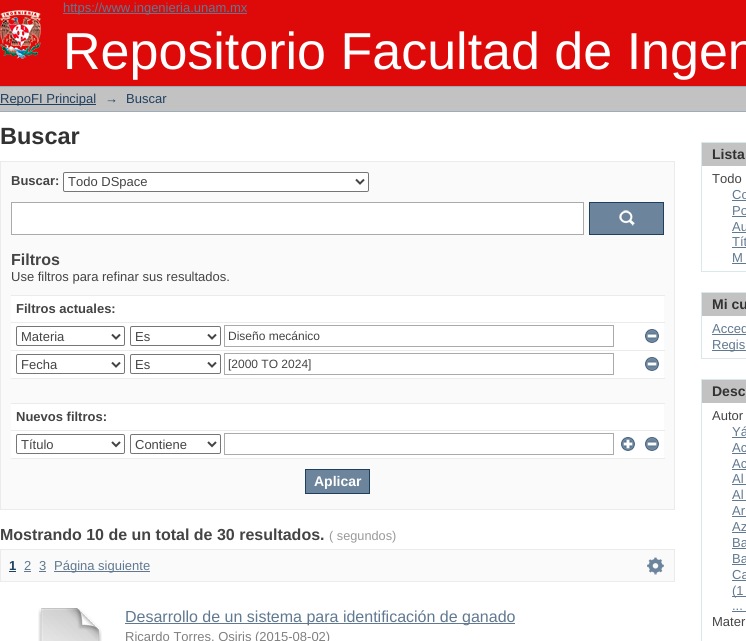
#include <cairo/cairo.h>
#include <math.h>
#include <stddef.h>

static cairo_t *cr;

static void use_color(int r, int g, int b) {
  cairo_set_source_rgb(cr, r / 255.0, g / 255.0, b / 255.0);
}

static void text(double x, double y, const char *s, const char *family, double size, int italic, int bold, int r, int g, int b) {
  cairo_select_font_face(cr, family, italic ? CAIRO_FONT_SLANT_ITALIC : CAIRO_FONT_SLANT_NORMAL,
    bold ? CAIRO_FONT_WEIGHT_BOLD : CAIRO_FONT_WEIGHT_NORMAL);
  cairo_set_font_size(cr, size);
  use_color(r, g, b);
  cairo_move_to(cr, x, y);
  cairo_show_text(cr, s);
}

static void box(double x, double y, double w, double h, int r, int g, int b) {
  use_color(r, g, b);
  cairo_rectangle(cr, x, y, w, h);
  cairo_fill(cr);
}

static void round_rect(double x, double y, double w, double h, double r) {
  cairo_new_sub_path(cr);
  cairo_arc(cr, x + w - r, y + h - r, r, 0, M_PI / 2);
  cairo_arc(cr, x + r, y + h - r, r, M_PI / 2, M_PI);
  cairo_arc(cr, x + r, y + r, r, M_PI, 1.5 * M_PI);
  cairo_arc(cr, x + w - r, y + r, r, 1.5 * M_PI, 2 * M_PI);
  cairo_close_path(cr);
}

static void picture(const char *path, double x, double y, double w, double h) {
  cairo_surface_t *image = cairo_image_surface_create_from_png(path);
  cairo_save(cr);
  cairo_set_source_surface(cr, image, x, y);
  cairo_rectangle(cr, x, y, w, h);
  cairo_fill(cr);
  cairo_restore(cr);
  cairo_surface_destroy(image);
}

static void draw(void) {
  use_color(255, 255, 255);
  cairo_paint(cr);
  box(0, 0, 746, 86, 222, 10, 10);
  box(63, 13, 184, 1, 96, 120, 144);
  picture("img_01.png", 0, 10, 41, 49);
  box(0, 87, 746, 24, 194, 194, 194);
  box(0, 86, 746, 1, 156, 172, 186);
  box(0, 111, 746, 1, 156, 172, 186);
  box(0, 104, 96, 1, 31, 63, 94);
  use_color(250, 250, 250);
  cairo_rectangle(cr, 0.5, 161.5, 674, 348);
  cairo_fill_preserve(cr);
  use_color(235, 235, 235);
  cairo_set_line_width(cr, 1);
  cairo_stroke(cr);
  use_color(255, 255, 255);
  round_rect(63.5, 172.5, 305, 19, 1.5);
  cairo_fill_preserve(cr);
  use_color(118, 118, 118);
  cairo_stroke(cr);
  cairo_new_path(cr);
  cairo_move_to(cr, 356, 179.5);
  cairo_line_to(cr, 360, 183.5);
  cairo_line_to(cr, 364, 179.5);
  use_color(68, 68, 68);
  cairo_set_line_width(cr, 2);
  cairo_stroke(cr);
  use_color(255, 255, 255);
  cairo_rectangle(cr, 11.5, 202.5, 572, 32);
  cairo_fill_preserve(cr);
  use_color(170, 170, 170);
  cairo_set_line_width(cr, 1);
  cairo_stroke(cr);
  box(590, 203, 73, 31, 109, 133, 156);
  picture("img_02.png", 619, 210, 16, 16);
  cairo_rectangle(cr, 589.5, 202.5, 74, 32);
  use_color(31, 63, 94);
  cairo_stroke(cr);
  box(11, 296, 653, 162, 255, 255, 255);
  box(11, 295, 654, 1, 235, 235, 235);
  box(11, 322, 654, 1, 235, 235, 235);
  round_rect(16.5, 326.5, 108, 19, 1.5);
  use_color(118, 118, 118);
  cairo_stroke(cr);
  cairo_new_path(cr);
  cairo_move_to(cr, 112, 334.5);
  cairo_line_to(cr, 116, 338.5);
  cairo_line_to(cr, 120, 334.5);
  use_color(68, 68, 68);
  cairo_set_line_width(cr, 2);
  cairo_stroke(cr);
  round_rect(130.5, 326.5, 90, 19, 1.5);
  use_color(118, 118, 118);
  cairo_set_line_width(cr, 1);
  cairo_stroke(cr);
  cairo_new_path(cr);
  cairo_move_to(cr, 208, 334.5);
  cairo_line_to(cr, 212, 338.5);
  cairo_line_to(cr, 216, 334.5);
  use_color(68, 68, 68);
  cairo_set_line_width(cr, 2);
  cairo_stroke(cr);
  cairo_rectangle(cr, 224.5, 325.5, 389, 21);
  use_color(170, 170, 170);
  cairo_set_line_width(cr, 1);
  cairo_stroke(cr);
  picture("img_03.png", 645, 329, 14, 14);
  box(11, 350, 654, 1, 235, 235, 235);
  round_rect(16.5, 354.5, 108, 19, 1.5);
  use_color(118, 118, 118);
  cairo_stroke(cr);
  cairo_new_path(cr);
  cairo_move_to(cr, 112, 362.5);
  cairo_line_to(cr, 116, 366.5);
  cairo_line_to(cr, 120, 362.5);
  use_color(68, 68, 68);
  cairo_set_line_width(cr, 2);
  cairo_stroke(cr);
  round_rect(130.5, 354.5, 90, 19, 1.5);
  use_color(118, 118, 118);
  cairo_set_line_width(cr, 1);
  cairo_stroke(cr);
  cairo_new_path(cr);
  cairo_move_to(cr, 208, 362.5);
  cairo_line_to(cr, 212, 366.5);
  cairo_line_to(cr, 216, 362.5);
  use_color(68, 68, 68);
  cairo_set_line_width(cr, 2);
  cairo_stroke(cr);
  cairo_rectangle(cr, 224.5, 353.5, 389, 21);
  use_color(170, 170, 170);
  cairo_set_line_width(cr, 1);
  cairo_stroke(cr);
  picture("img_03.png", 645, 357, 14, 14);
  box(11, 379, 653, 24, 250, 250, 250);
  box(11, 378, 654, 1, 235, 235, 235);
  box(11, 403, 654, 1, 235, 235, 235);
  box(11, 430, 654, 1, 235, 235, 235);
  round_rect(16.5, 434.5, 108, 19, 1.5);
  use_color(118, 118, 118);
  cairo_stroke(cr);
  cairo_new_path(cr);
  cairo_move_to(cr, 112, 442);
  cairo_line_to(cr, 116, 446);
  cairo_line_to(cr, 120, 442);
  use_color(68, 68, 68);
  cairo_set_line_width(cr, 2);
  cairo_stroke(cr);
  round_rect(130.5, 434.5, 90, 19, 1.5);
  use_color(118, 118, 118);
  cairo_set_line_width(cr, 1);
  cairo_stroke(cr);
  cairo_new_path(cr);
  cairo_move_to(cr, 208, 442);
  cairo_line_to(cr, 212, 446);
  cairo_line_to(cr, 216, 442);
  use_color(68, 68, 68);
  cairo_set_line_width(cr, 2);
  cairo_stroke(cr);
  cairo_rectangle(cr, 224.5, 433.5, 389, 21);
  use_color(170, 170, 170);
  cairo_set_line_width(cr, 1);
  cairo_stroke(cr);
  picture("img_04.png", 621, 437, 14, 14);
  picture("img_03.png", 645, 437, 14, 14);
  box(11, 458, 654, 1, 235, 235, 235);
  use_color(109, 133, 156);
  cairo_rectangle(cr, 305.5, 469.5, 64, 24);
  cairo_fill_preserve(cr);
  use_color(31, 63, 94);
  cairo_stroke(cr);
  use_color(250, 250, 250);
  cairo_rectangle(cr, 0.5, 549.5, 674, 32);
  cairo_fill_preserve(cr);
  use_color(235, 235, 235);
  cairo_stroke(cr);
  box(9, 571, 7, 1, 31, 63, 94);
  box(24, 571, 7, 1, 96, 120, 144);
  box(39, 571, 7, 1, 96, 120, 144);
  box(54, 571, 96, 1, 96, 120, 144);
  picture("img_05.png", 647, 557, 17, 18);
  picture("img_06.png", 38, 608, 64, 33);
  box(125, 623, 390, 1, 96, 120, 144);
  box(702, 143, 44, 23, 194, 194, 194);
  box(701, 142, 45, 1, 216, 232, 235);
  box(701, 142, 1, 24, 216, 232, 235);
  box(701, 271, 45, 1, 216, 232, 235);
  box(701, 166, 1, 106, 216, 232, 235);
  box(732, 200, 14, 1, 96, 120, 144);
  box(732, 216, 14, 1, 96, 120, 144);
  box(732, 232, 14, 1, 96, 120, 144);
  box(732, 247, 14, 1, 96, 120, 144);
  box(732, 263, 14, 1, 96, 120, 144);
  box(702, 293, 44, 23, 194, 194, 194);
  box(701, 292, 45, 1, 216, 232, 235);
  box(701, 292, 1, 24, 216, 232, 235);
  box(701, 358, 45, 1, 216, 232, 235);
  box(701, 316, 1, 43, 216, 232, 235);
  box(712, 334, 34, 1, 96, 120, 144);
  box(712, 350, 34, 1, 96, 120, 144);
  box(702, 380, 44, 23, 194, 194, 194);
  box(701, 379, 45, 1, 216, 232, 235);
  box(701, 379, 1, 262, 216, 232, 235);
  box(732, 437, 14, 1, 96, 120, 144);
  box(732, 453, 14, 1, 96, 120, 144);
  box(732, 469, 14, 1, 96, 120, 144);
  box(732, 484, 14, 1, 96, 120, 144);
  box(732, 500, 14, 1, 96, 120, 144);
  box(732, 516, 14, 1, 96, 120, 144);
  box(732, 532, 14, 1, 96, 120, 144);
  box(732, 548, 14, 1, 96, 120, 144);
  box(732, 564, 14, 1, 96, 120, 144);
  box(732, 580, 14, 1, 96, 120, 144);
  box(732, 596, 14, 1, 96, 120, 144);
  box(732, 611, 14, 1, 96, 120, 144);
  text(63, 12, "https://www.ingenieria.unam.mx", "Liberation Sans", 13, 0, 0, 96, 120, 144);
  text(63, 69, "Repositorio Facultad de Ingen", "Liberation Sans", 52, 0, 0, 255, 255, 255);
  text(0, 103, "RepoFI Principal", "Liberation Sans", 13, 0, 0, 31, 63, 94);
  text(105, 103, "→", "Liberation Sans", 13, 0, 0, 31, 63, 94);
  text(126, 103, "Buscar", "Liberation Sans", 13, 0, 0, 31, 63, 94);
  text(0, 144, "Buscar", "Liberation Sans", 23.5, 0, 1, 50, 50, 50);
  text(11, 185, "Buscar:", "Liberation Sans", 13, 0, 1, 68, 68, 68);
  text(68, 186, "Todo DSpace", "Liberation Sans", 13, 0, 0, 68, 68, 68);
  text(11, 265, "Filtros", "Liberation Sans", 16, 0, 1, 68, 68, 68);
  text(11, 281, "Use filtros para refinar sus resultados.", "Liberation Sans", 13, 0, 0, 68, 68, 68);
  text(16, 313, "Filtros actuales:", "Liberation Sans", 13, 0, 1, 68, 68, 68);
  text(21, 341, "Materia", "Liberation Sans", 13, 0, 0, 68, 68, 68);
  text(135, 341, "Es", "Liberation Sans", 13, 0, 0, 68, 68, 68);
  text(228, 340, "Diseño mecánico", "Liberation Sans", 12, 0, 0, 68, 68, 68);
  text(21, 369, "Fecha", "Liberation Sans", 13, 0, 0, 68, 68, 68);
  text(135, 369, "Es", "Liberation Sans", 13, 0, 0, 68, 68, 68);
  text(228, 368, "[2000 TO 2024]", "Liberation Sans", 12, 0, 0, 68, 68, 68);
  text(16, 421, "Nuevos filtros:", "Liberation Sans", 13, 0, 1, 68, 68, 68);
  text(21, 449, "Título", "Liberation Sans", 13, 0, 0, 68, 68, 68);
  text(135, 449, "Contiene", "Liberation Sans", 13, 0, 0, 68, 68, 68);
  text(314, 486, "Aplicar", "Liberation Sans", 14, 0, 1, 255, 255, 255);
  text(0, 540, "Mostrando 10 de un total de 30 resultados.", "Liberation Sans", 16, 0, 1, 68, 68, 68);
  text(329, 540, "( segundos)", "Liberation Sans", 12.75, 0, 0, 153, 153, 153);
  text(9, 570, "1", "Liberation Sans", 13, 0, 1, 31, 63, 94);
  text(24, 570, "2", "Liberation Sans", 13, 0, 0, 96, 120, 144);
  text(39, 570, "3", "Liberation Sans", 13, 0, 0, 96, 120, 144);
  text(54, 570, "Página siguiente", "Liberation Sans", 13, 0, 0, 96, 120, 144);
  text(125, 622, "Desarrollo de un sistema para identificación de ganado", "Liberation Sans", 16, 0, 0, 96, 120, 144);
  text(125, 641, "Ricardo Torres, Osiris (2015-08-02)", "Liberation Sans", 13, 0, 0, 128, 128, 128);
  text(712, 159, "Lista", "Liberation Sans", 14, 0, 1, 50, 50, 50);
  text(712, 183, "Todo", "Liberation Sans", 13, 0, 0, 68, 68, 68);
  text(732, 199, "Co", "Liberation Sans", 13, 0, 0, 96, 120, 144);
  text(732, 215, "Po", "Liberation Sans", 13, 0, 0, 96, 120, 144);
  text(732, 231, "Au", "Liberation Sans", 13, 0, 0, 96, 120, 144);
  text(732, 246, "Tít", "Liberation Sans", 13, 0, 0, 96, 120, 144);
  text(732, 262, "M", "Liberation Sans", 13, 0, 0, 96, 120, 144);
  text(712, 309, "Mi cu", "Liberation Sans", 14, 0, 1, 50, 50, 50);
  text(712, 333, "Acced", "Liberation Sans", 13, 0, 0, 96, 120, 144);
  text(712, 349, "Regis", "Liberation Sans", 13, 0, 0, 96, 120, 144);
  text(712, 396, "Desc", "Liberation Sans", 14, 0, 1, 50, 50, 50);
  text(712, 420, "Autor", "Liberation Sans", 13, 0, 0, 68, 68, 68);
  text(732, 436, "Yá", "Liberation Sans", 13, 0, 0, 96, 120, 144);
  text(732, 452, "Ac", "Liberation Sans", 13, 0, 0, 96, 120, 144);
  text(732, 468, "Ac", "Liberation Sans", 13, 0, 0, 96, 120, 144);
  text(732, 483, "Al", "Liberation Sans", 13, 0, 0, 96, 120, 144);
  text(732, 499, "Al", "Liberation Sans", 13, 0, 0, 96, 120, 144);
  text(732, 515, "Ar", "Liberation Sans", 13, 0, 0, 96, 120, 144);
  text(732, 531, "Az", "Liberation Sans", 13, 0, 0, 96, 120, 144);
  text(732, 547, "Ba", "Liberation Sans", 13, 0, 0, 96, 120, 144);
  text(732, 563, "Ba", "Liberation Sans", 13, 0, 0, 96, 120, 144);
  text(732, 579, "Ca", "Liberation Sans", 13, 0, 0, 96, 120, 144);
  text(732, 595, "(1", "Liberation Sans", 13, 0, 0, 96, 120, 144);
  text(732, 610, "...", "Liberation Sans", 13, 0, 0, 96, 120, 144);
  text(712, 626, "Mater", "Liberation Sans", 13, 0, 0, 68, 68, 68);
}

int main(void) {
  cairo_surface_t *surface = cairo_image_surface_create(CAIRO_FORMAT_RGB24, 746, 641);
  cr = cairo_create(surface);
  cairo_font_options_t *options = cairo_font_options_create();
  cairo_font_options_set_hint_metrics(options, CAIRO_HINT_METRICS_OFF);
  cairo_font_options_set_hint_style(options, CAIRO_HINT_STYLE_NONE);
  cairo_set_font_options(cr, options);
  cairo_set_miter_limit(cr, 4);
  draw();
  cairo_surface_write_to_png(surface, "out.png");
  cairo_font_options_destroy(options);
  cairo_destroy(cr);
  cairo_surface_destroy(surface);
  return 0;
}
